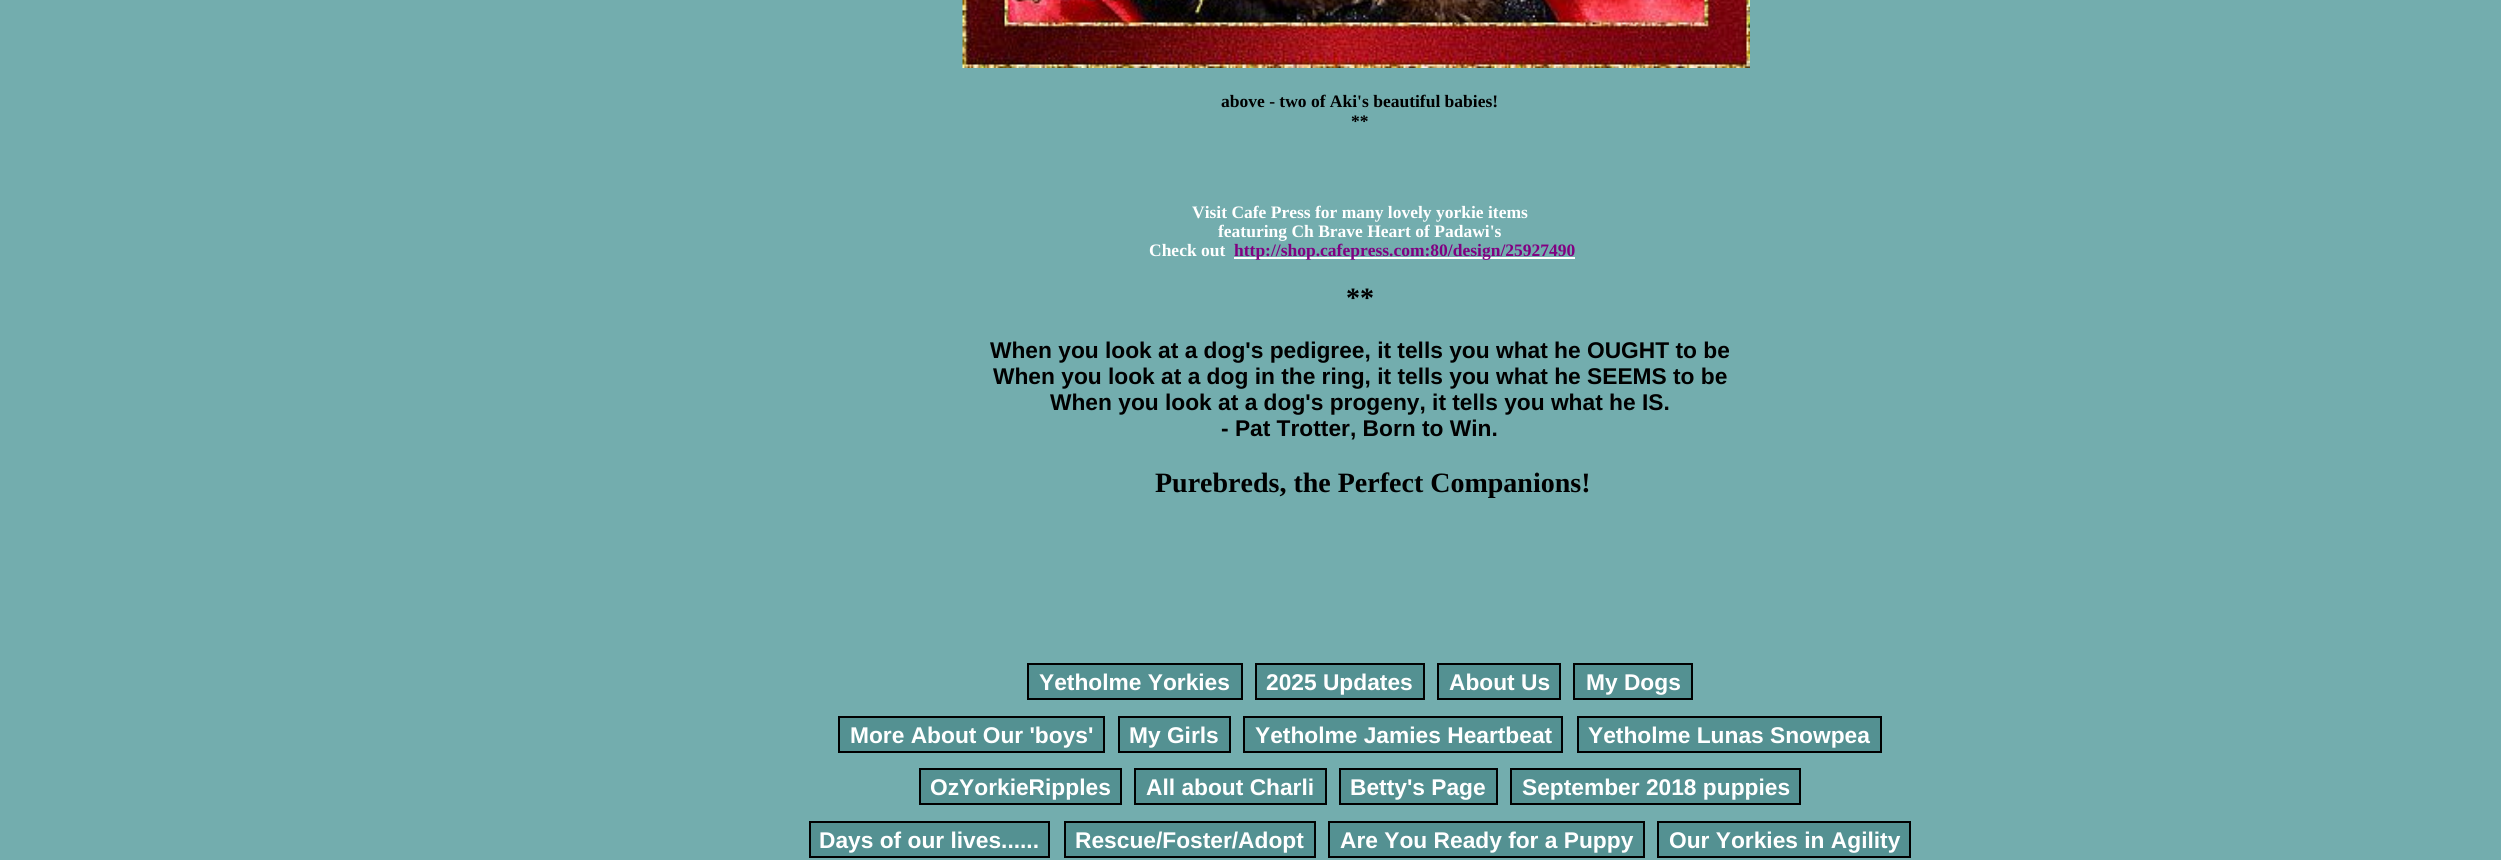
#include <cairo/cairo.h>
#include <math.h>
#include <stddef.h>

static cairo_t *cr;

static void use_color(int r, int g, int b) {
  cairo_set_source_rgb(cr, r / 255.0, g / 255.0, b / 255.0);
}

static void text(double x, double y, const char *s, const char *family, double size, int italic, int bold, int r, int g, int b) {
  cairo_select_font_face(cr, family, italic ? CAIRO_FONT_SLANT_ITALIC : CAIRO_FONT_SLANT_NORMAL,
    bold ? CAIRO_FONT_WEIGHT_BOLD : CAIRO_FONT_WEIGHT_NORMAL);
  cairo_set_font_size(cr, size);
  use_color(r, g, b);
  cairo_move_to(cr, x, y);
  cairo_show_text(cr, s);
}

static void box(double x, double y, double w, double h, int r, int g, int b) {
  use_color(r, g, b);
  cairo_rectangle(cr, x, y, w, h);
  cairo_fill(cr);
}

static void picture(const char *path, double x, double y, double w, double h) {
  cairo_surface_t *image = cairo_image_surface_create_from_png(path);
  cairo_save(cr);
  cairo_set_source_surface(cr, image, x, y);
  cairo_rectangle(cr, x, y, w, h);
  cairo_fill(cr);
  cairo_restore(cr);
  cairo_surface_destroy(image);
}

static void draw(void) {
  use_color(115, 173, 174);
  cairo_paint(cr);
  picture("img_01.png", 962, 0, 788, 68);
  box(1234, 257, 341, 2, 255, 255, 255);
  box(1029, 665, 212, 33, 84, 145, 146);
  box(1027, 663, 216, 2, 0, 0, 0);
  box(1027, 698, 203, 2, 0, 0, 0);
  box(1027, 663, 2, 37, 0, 0, 0);
  box(1241, 663, 2, 37, 0, 0, 0);
  box(1230, 698, 13, 2, 0, 0, 0);
  box(1257, 665, 166, 33, 84, 145, 146);
  box(1255, 663, 170, 2, 0, 0, 0);
  box(1255, 698, 157, 2, 0, 0, 0);
  box(1255, 663, 2, 37, 0, 0, 0);
  box(1423, 663, 2, 37, 0, 0, 0);
  box(1412, 698, 13, 2, 0, 0, 0);
  box(1439, 665, 120, 33, 84, 145, 146);
  box(1437, 663, 124, 2, 0, 0, 0);
  box(1437, 698, 114, 2, 0, 0, 0);
  box(1437, 663, 2, 37, 0, 0, 0);
  box(1559, 663, 2, 37, 0, 0, 0);
  box(1551, 698, 10, 2, 0, 0, 0);
  box(1575, 665, 116, 33, 84, 145, 146);
  box(1573, 663, 119, 2, 0, 0, 0);
  box(1573, 698, 107, 2, 0, 0, 0);
  box(1573, 663, 2, 37, 0, 0, 0);
  box(1691, 663, 2, 37, 0, 0, 0);
  box(1680, 698, 12, 2, 0, 0, 0);
  box(840, 718, 263, 33, 84, 145, 146);
  box(838, 716, 266, 2, 0, 0, 0);
  box(838, 751, 256, 2, 0, 0, 0);
  box(838, 716, 2, 37, 0, 0, 0);
  box(1103, 716, 2, 37, 0, 0, 0);
  box(1094, 751, 10, 2, 0, 0, 0);
  box(1120, 718, 109, 33, 84, 145, 146);
  box(1118, 716, 112, 2, 0, 0, 0);
  box(1118, 751, 102, 2, 0, 0, 0);
  box(1118, 716, 2, 37, 0, 0, 0);
  box(1229, 716, 2, 37, 0, 0, 0);
  box(1220, 751, 10, 2, 0, 0, 0);
  box(1245, 718, 316, 33, 84, 145, 146);
  box(1243, 716, 320, 2, 0, 0, 0);
  box(1243, 751, 309, 2, 0, 0, 0);
  box(1243, 716, 2, 37, 0, 0, 0);
  box(1561, 716, 2, 37, 0, 0, 0);
  box(1552, 751, 11, 2, 0, 0, 0);
  box(1579, 718, 301, 33, 84, 145, 146);
  box(1577, 716, 304, 2, 0, 0, 0);
  box(1577, 751, 292, 2, 0, 0, 0);
  box(1577, 716, 2, 37, 0, 0, 0);
  box(1880, 716, 2, 37, 0, 0, 0);
  box(1869, 751, 12, 2, 0, 0, 0);
  box(921, 770, 199, 33, 84, 145, 146);
  box(919, 768, 203, 2, 0, 0, 0);
  box(919, 803, 192, 2, 0, 0, 0);
  box(919, 768, 2, 37, 0, 0, 0);
  box(1120, 768, 2, 37, 0, 0, 0);
  box(1111, 803, 11, 2, 0, 0, 0);
  box(1136, 770, 189, 33, 84, 145, 146);
  box(1134, 768, 193, 2, 0, 0, 0);
  box(1134, 803, 180, 2, 0, 0, 0);
  box(1134, 768, 2, 37, 0, 0, 0);
  box(1325, 768, 2, 37, 0, 0, 0);
  box(1314, 803, 13, 2, 0, 0, 0);
  box(1341, 770, 155, 33, 84, 145, 146);
  box(1339, 768, 159, 2, 0, 0, 0);
  box(1339, 803, 147, 2, 0, 0, 0);
  box(1339, 768, 2, 37, 0, 0, 0);
  box(1496, 768, 2, 37, 0, 0, 0);
  box(1486, 803, 12, 2, 0, 0, 0);
  box(1512, 770, 287, 33, 84, 145, 146);
  box(1510, 768, 291, 2, 0, 0, 0);
  box(1510, 803, 280, 2, 0, 0, 0);
  box(1510, 768, 2, 37, 0, 0, 0);
  box(1799, 768, 2, 37, 0, 0, 0);
  box(1790, 803, 11, 2, 0, 0, 0);
  box(811, 823, 237, 33, 84, 145, 146);
  box(809, 821, 241, 2, 0, 0, 0);
  box(809, 856, 231, 2, 0, 0, 0);
  box(809, 821, 2, 37, 0, 0, 0);
  box(1048, 821, 2, 37, 0, 0, 0);
  box(1040, 856, 10, 2, 0, 0, 0);
  box(1066, 823, 248, 33, 84, 145, 146);
  box(1064, 821, 252, 2, 0, 0, 0);
  box(1064, 856, 240, 2, 0, 0, 0);
  box(1064, 821, 2, 37, 0, 0, 0);
  box(1314, 821, 2, 37, 0, 0, 0);
  box(1304, 856, 12, 2, 0, 0, 0);
  box(1330, 823, 313, 33, 84, 145, 146);
  box(1328, 821, 317, 2, 0, 0, 0);
  box(1328, 856, 305, 2, 0, 0, 0);
  box(1328, 821, 2, 37, 0, 0, 0);
  box(1643, 821, 2, 37, 0, 0, 0);
  box(1633, 856, 12, 2, 0, 0, 0);
  box(1659, 823, 250, 33, 84, 145, 146);
  box(1657, 821, 254, 2, 0, 0, 0);
  box(1657, 856, 244, 2, 0, 0, 0);
  box(1657, 821, 2, 37, 0, 0, 0);
  box(1909, 821, 2, 37, 0, 0, 0);
  box(1901, 856, 10, 2, 0, 0, 0);
  text(1221, 107, "above - two of Aki's beautiful babies!", "Liberation Serif", 17.5, 0, 1, 0, 0, 0);
  text(1351, 127, "**", "Liberation Serif", 17.5, 0, 1, 0, 0, 0);
  text(1192, 218, "Visit Cafe Press for many lovely yorkie items", "Liberation Serif", 17.5, 0, 1, 255, 255, 255);
  text(1218, 237, "featuring Ch Brave Heart of Padawi's", "Liberation Serif", 17.5, 0, 1, 255, 255, 255);
  text(1149, 256, "Check out", "Liberation Serif", 17.5, 0, 1, 255, 255, 255);
  text(1234, 256, "http://shop.cafepress.com:80/design/25927490", "Liberation Serif", 17.5, 0, 1, 129, 0, 129);
  text(1346, 307, "**", "Liberation Serif", 28, 0, 1, 0, 0, 0);
  text(990, 358, "When you look at a dog's pedigree, it tells you what he OUGHT to be", "Liberation Sans", 22.75, 0, 1, 0, 0, 0);
  text(993, 384, "When you look at a dog in the ring, it tells you what he SEEMS to be", "Liberation Sans", 22.75, 0, 1, 0, 0, 0);
  text(1050, 410, "When you look at a dog's progeny, it tells you what he IS.", "Liberation Sans", 22.75, 0, 1, 0, 0, 0);
  text(1221, 436, "- Pat Trotter, Born to Win.", "Liberation Sans", 22.75, 0, 1, 0, 0, 0);
  text(1155, 492, "Purebreds, the Perfect Companions!", "Liberation Serif", 28, 0, 1, 0, 0, 0);
  text(1039, 690, "Yetholme Yorkies", "Liberation Sans", 22.75, 0, 1, 255, 255, 255);
  text(1266, 690, "2025 Updates", "Liberation Sans", 22.75, 0, 1, 255, 255, 255);
  text(1449, 690, "About Us", "Liberation Sans", 22.75, 0, 1, 255, 255, 255);
  text(1586, 690, "My Dogs", "Liberation Sans", 22.75, 0, 1, 255, 255, 255);
  text(850, 743, "More About Our 'boys'", "Liberation Sans", 22.75, 0, 1, 255, 255, 255);
  text(1129, 743, "My Girls", "Liberation Sans", 22.75, 0, 1, 255, 255, 255);
  text(1255, 743, "Yetholme Jamies Heartbeat", "Liberation Sans", 22.75, 0, 1, 255, 255, 255);
  text(1588, 743, "Yetholme Lunas Snowpea", "Liberation Sans", 22.75, 0, 1, 255, 255, 255);
  text(930, 795, "OzYorkieRipples", "Liberation Sans", 22.75, 0, 1, 255, 255, 255);
  text(1146, 795, "All about Charli", "Liberation Sans", 22.75, 0, 1, 255, 255, 255);
  text(1350, 795, "Betty's Page", "Liberation Sans", 22.75, 0, 1, 255, 255, 255);
  text(1522, 795, "September 2018 puppies", "Liberation Sans", 22.75, 0, 1, 255, 255, 255);
  text(819, 848, "Days of our lives......", "Liberation Sans", 22.75, 0, 1, 255, 255, 255);
  text(1075, 848, "Rescue/Foster/Adopt", "Liberation Sans", 22.75, 0, 1, 255, 255, 255);
  text(1340, 848, "Are You Ready for a Puppy", "Liberation Sans", 22.75, 0, 1, 255, 255, 255);
  text(1669, 848, "Our Yorkies in Agility", "Liberation Sans", 22.75, 0, 1, 255, 255, 255);
}

int main(void) {
  cairo_surface_t *surface = cairo_image_surface_create(CAIRO_FORMAT_RGB24, 2501, 860);
  cr = cairo_create(surface);
  cairo_font_options_t *options = cairo_font_options_create();
  cairo_font_options_set_hint_metrics(options, CAIRO_HINT_METRICS_OFF);
  cairo_font_options_set_hint_style(options, CAIRO_HINT_STYLE_NONE);
  cairo_set_font_options(cr, options);
  cairo_set_miter_limit(cr, 4);
  draw();
  cairo_surface_write_to_png(surface, "out.png");
  cairo_font_options_destroy(options);
  cairo_destroy(cr);
  cairo_surface_destroy(surface);
  return 0;
}
